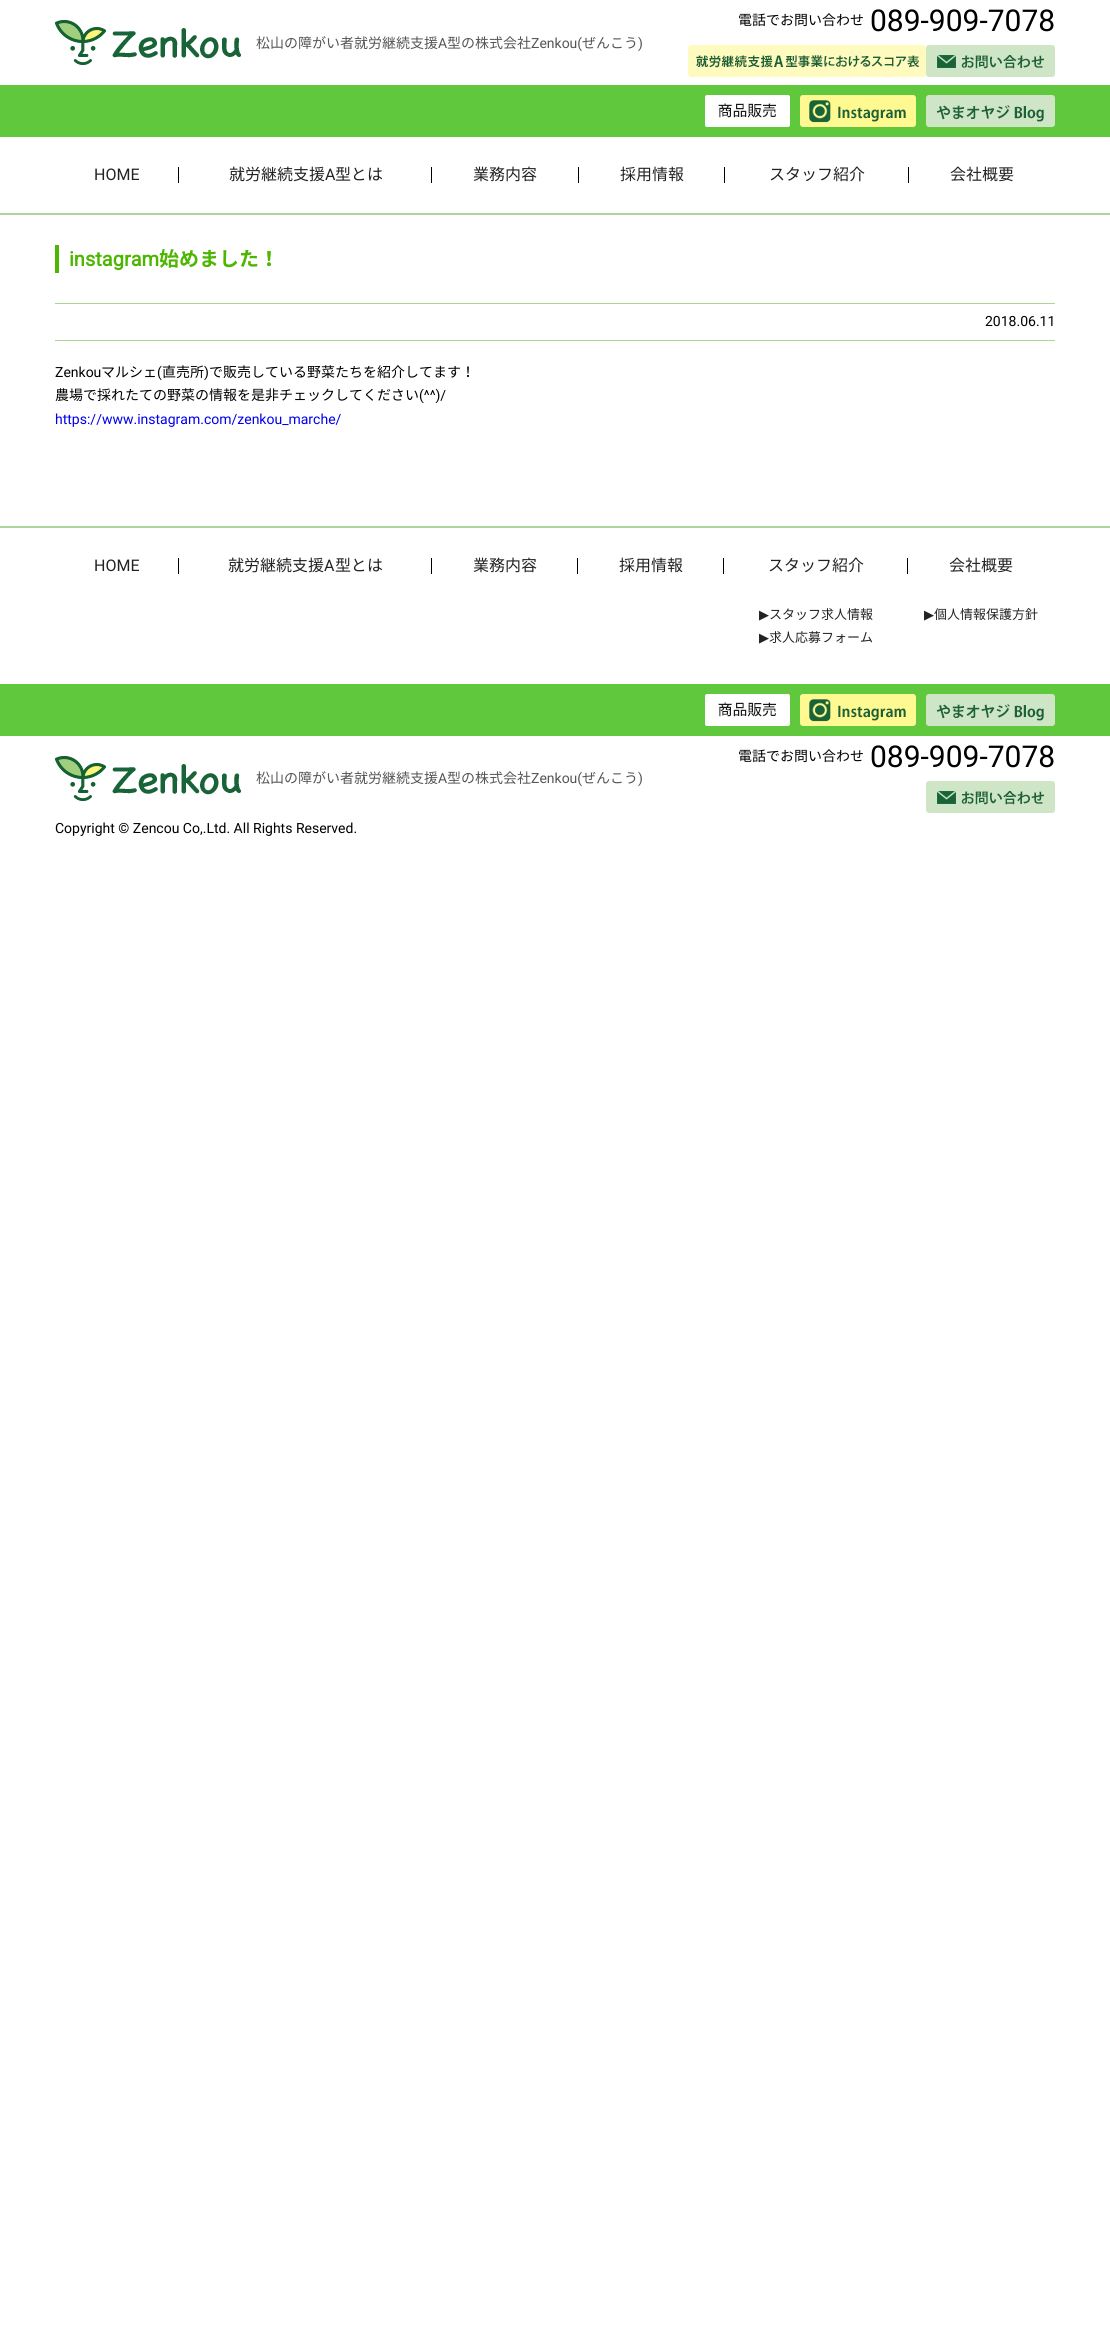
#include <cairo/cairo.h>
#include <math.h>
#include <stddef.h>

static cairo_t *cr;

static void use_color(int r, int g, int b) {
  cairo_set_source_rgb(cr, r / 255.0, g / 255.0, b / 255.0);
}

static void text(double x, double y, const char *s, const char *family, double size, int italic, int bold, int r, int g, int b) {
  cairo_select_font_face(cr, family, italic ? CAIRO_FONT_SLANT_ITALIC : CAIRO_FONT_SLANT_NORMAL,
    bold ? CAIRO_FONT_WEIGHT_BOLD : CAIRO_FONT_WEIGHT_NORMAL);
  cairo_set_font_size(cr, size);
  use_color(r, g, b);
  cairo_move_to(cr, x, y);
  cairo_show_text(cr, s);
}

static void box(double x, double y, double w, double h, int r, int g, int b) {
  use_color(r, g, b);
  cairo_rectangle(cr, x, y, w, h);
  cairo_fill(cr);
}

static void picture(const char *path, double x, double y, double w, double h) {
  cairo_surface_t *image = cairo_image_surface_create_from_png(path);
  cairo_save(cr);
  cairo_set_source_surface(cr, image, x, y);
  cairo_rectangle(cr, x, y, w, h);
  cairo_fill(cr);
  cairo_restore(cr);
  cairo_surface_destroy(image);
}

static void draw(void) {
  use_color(255, 255, 255);
  cairo_paint(cr);
  picture("img_01.png", 55, 20, 186, 45);
  picture("img_02.png", 688, 45, 238, 32);
  picture("img_03.png", 926, 45, 129, 32);
  box(0, 85, 1110, 52, 96, 200, 60);
  picture("img_04.png", 705, 95, 85, 32);
  picture("img_05.png", 800, 95, 116, 32);
  picture("img_06.png", 926, 95, 129, 32);
  box(178, 167, 1, 16, 0, 0, 0);
  box(431, 167, 1, 16, 0, 0, 0);
  box(578, 167, 1, 16, 0, 0, 0);
  box(724, 167, 1, 16, 0, 0, 0);
  box(908, 167, 1, 16, 0, 0, 0);
  box(0, 213, 1110, 2, 172, 213, 152);
  box(0, 526, 1110, 2, 172, 213, 152);
  box(55, 245, 4, 28, 77, 182, 0);
  box(55, 303, 1000, 1, 172, 213, 152);
  box(55, 340, 1000, 1, 172, 213, 152);
  box(178, 558, 1, 16, 0, 0, 0);
  box(431, 558, 1, 16, 0, 0, 0);
  box(577, 558, 1, 16, 0, 0, 0);
  box(723, 558, 1, 16, 0, 0, 0);
  box(907, 558, 1, 16, 0, 0, 0);
  box(0, 684, 1110, 52, 96, 200, 60);
  picture("img_04.png", 705, 694, 85, 32);
  picture("img_05.png", 800, 694, 116, 32);
  picture("img_06.png", 926, 694, 129, 32);
  picture("img_01.png", 55, 756, 186, 45);
  picture("img_03.png", 926, 781, 129, 32);
  text(738, 25, "電話でお問い合わせ", "Noto Sans JP", 14, 0, 0, 0, 0, 0);
  text(870, 31, "089-909-7078", "Roboto", 30, 0, 0, 0, 0, 0);
  text(256, 48, "松山の障がい者就労継続支援", "Noto Sans JP", 14, 0, 0, 85, 85, 85);
  text(438, 48, "A", "Roboto", 14, 0, 0, 85, 85, 85);
  text(447, 48, "型の株式会社", "Noto Sans JP", 14, 0, 0, 85, 85, 85);
  text(531, 48, "Zenkou(", "Roboto", 14, 0, 0, 85, 85, 85);
  text(582, 48, "ぜんこう", "Noto Sans JP", 14, 0, 0, 85, 85, 85);
  text(638, 48, ")", "Roboto", 14, 0, 0, 85, 85, 85);
  text(94, 180, "HOME", "Roboto", 16, 0, 0, 34, 34, 34);
  text(229, 180, "就労継続支援", "Noto Sans JP", 16, 0, 0, 34, 34, 34);
  text(325, 180, "A", "Roboto", 16, 0, 0, 34, 34, 34);
  text(335, 180, "型とは", "Noto Sans JP", 16, 0, 0, 34, 34, 34);
  text(473, 180, "業務内容", "Noto Sans JP", 16, 0, 0, 34, 34, 34);
  text(620, 180, "採用情報", "Noto Sans JP", 16, 0, 0, 34, 34, 34);
  text(769, 180, "スタッフ紹介", "Noto Sans JP", 16, 0, 0, 34, 34, 34);
  text(950, 180, "会社概要", "Noto Sans JP", 16, 0, 0, 34, 34, 34);
  text(69, 266, "instagram", "Roboto", 20, 0, 1, 77, 182, 0);
  text(159, 266, "始めました！", "Noto Sans JP", 20, 0, 1, 77, 182, 0);
  text(985, 326, "2018.06.11", "Roboto", 14, 0, 0, 0, 0, 0);
  text(55, 377, "Zenkou", "Roboto", 14, 0, 0, 0, 0, 0);
  text(101, 377, "マルシェ", "Noto Sans JP", 14, 0, 0, 0, 0, 0);
  text(157, 377, "(", "Roboto", 14, 0, 0, 0, 0, 0);
  text(162, 377, "直売所", "Noto Sans JP", 14, 0, 0, 0, 0, 0);
  text(204, 377, ")", "Roboto", 14, 0, 0, 0, 0, 0);
  text(209, 377, "で販売している野菜たちを紹介してます！", "Noto Sans JP", 14, 0, 0, 0, 0, 0);
  text(55, 400, "農場で採れたての野菜の情報を是非チェックしてください", "Noto Sans JP", 14, 0, 0, 0, 0, 0);
  text(419, 400, "(^^)/", "Roboto", 14, 0, 0, 0, 0, 0);
  text(55, 424, "https://www.instagram.com/zenkou_marche/", "Roboto", 14, 0, 0, 0, 0, 238);
  text(94, 571, "HOME", "Roboto", 16, 0, 0, 34, 34, 34);
  text(228, 571, "就労継続支援", "Noto Sans JP", 16, 0, 0, 34, 34, 34);
  text(324, 571, "A", "Roboto", 16, 0, 0, 34, 34, 34);
  text(335, 571, "型とは", "Noto Sans JP", 16, 0, 0, 34, 34, 34);
  text(473, 571, "業務内容", "Noto Sans JP", 16, 0, 0, 34, 34, 34);
  text(619, 571, "採用情報", "Noto Sans JP", 16, 0, 0, 34, 34, 34);
  text(768, 571, "スタッフ紹介", "Noto Sans JP", 16, 0, 0, 34, 34, 34);
  text(759, 619, "▶", "DejaVu Sans", 13, 0, 0, 34, 34, 34);
  text(769, 619, "スタッフ求人情報", "Noto Sans JP", 13, 0, 0, 34, 34, 34);
  text(759, 642, "▶", "DejaVu Sans", 13, 0, 0, 34, 34, 34);
  text(769, 642, "求人応募フォーム", "Noto Sans JP", 13, 0, 0, 34, 34, 34);
  text(949, 571, "会社概要", "Noto Sans JP", 16, 0, 0, 34, 34, 34);
  text(924, 619, "▶", "DejaVu Sans", 13, 0, 0, 34, 34, 34);
  text(934, 619, "個人情報保護方針", "Noto Sans JP", 13, 0, 0, 34, 34, 34);
  text(738, 761, "電話でお問い合わせ", "Noto Sans JP", 14, 0, 0, 0, 0, 0);
  text(870, 767, "089-909-7078", "Roboto", 30, 0, 0, 0, 0, 0);
  text(256, 783, "松山の障がい者就労継続支援", "Noto Sans JP", 14, 0, 0, 85, 85, 85);
  text(438, 783, "A", "Roboto", 14, 0, 0, 85, 85, 85);
  text(447, 783, "型の株式会社", "Noto Sans JP", 14, 0, 0, 85, 85, 85);
  text(531, 783, "Zenkou(", "Roboto", 14, 0, 0, 85, 85, 85);
  text(582, 783, "ぜんこう", "Noto Sans JP", 14, 0, 0, 85, 85, 85);
  text(638, 783, ")", "Roboto", 14, 0, 0, 85, 85, 85);
  text(55, 833, "Copyright © Zencou Co,.Ltd. All Rights Reserved.", "Roboto", 14, 0, 0, 0, 0, 0);
}

int main(void) {
  cairo_surface_t *surface = cairo_image_surface_create(CAIRO_FORMAT_RGB24, 1110, 2337);
  cr = cairo_create(surface);
  cairo_font_options_t *options = cairo_font_options_create();
  cairo_font_options_set_hint_metrics(options, CAIRO_HINT_METRICS_OFF);
  cairo_font_options_set_hint_style(options, CAIRO_HINT_STYLE_NONE);
  cairo_set_font_options(cr, options);
  cairo_set_miter_limit(cr, 4);
  draw();
  cairo_surface_write_to_png(surface, "out.png");
  cairo_font_options_destroy(options);
  cairo_destroy(cr);
  cairo_surface_destroy(surface);
  return 0;
}
